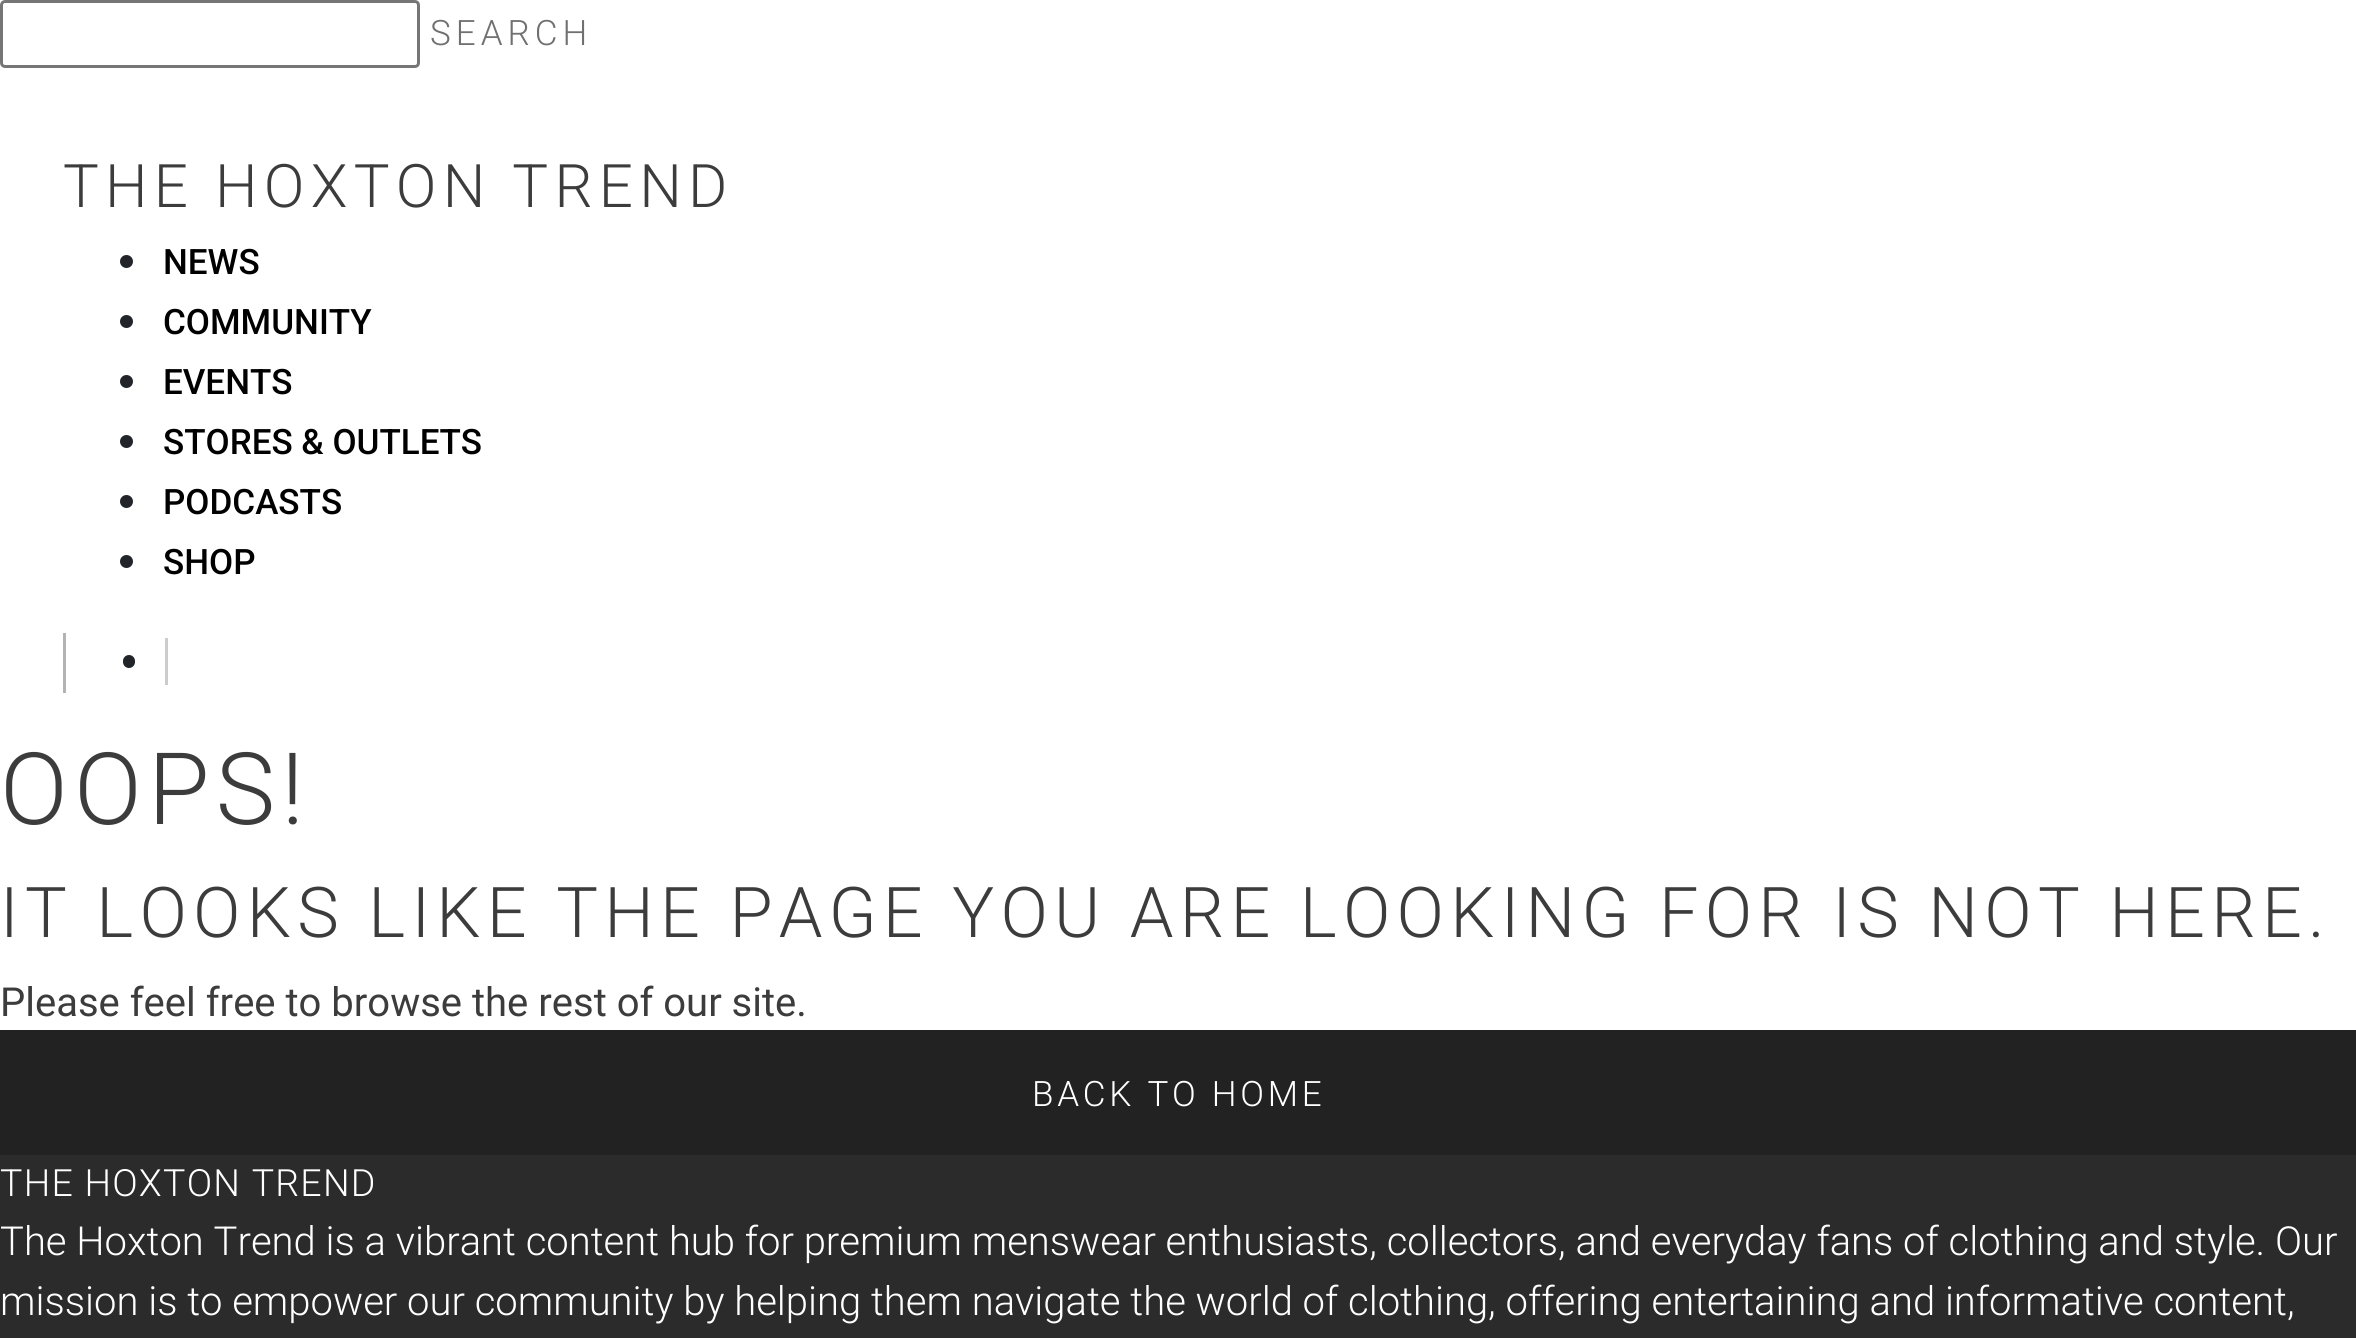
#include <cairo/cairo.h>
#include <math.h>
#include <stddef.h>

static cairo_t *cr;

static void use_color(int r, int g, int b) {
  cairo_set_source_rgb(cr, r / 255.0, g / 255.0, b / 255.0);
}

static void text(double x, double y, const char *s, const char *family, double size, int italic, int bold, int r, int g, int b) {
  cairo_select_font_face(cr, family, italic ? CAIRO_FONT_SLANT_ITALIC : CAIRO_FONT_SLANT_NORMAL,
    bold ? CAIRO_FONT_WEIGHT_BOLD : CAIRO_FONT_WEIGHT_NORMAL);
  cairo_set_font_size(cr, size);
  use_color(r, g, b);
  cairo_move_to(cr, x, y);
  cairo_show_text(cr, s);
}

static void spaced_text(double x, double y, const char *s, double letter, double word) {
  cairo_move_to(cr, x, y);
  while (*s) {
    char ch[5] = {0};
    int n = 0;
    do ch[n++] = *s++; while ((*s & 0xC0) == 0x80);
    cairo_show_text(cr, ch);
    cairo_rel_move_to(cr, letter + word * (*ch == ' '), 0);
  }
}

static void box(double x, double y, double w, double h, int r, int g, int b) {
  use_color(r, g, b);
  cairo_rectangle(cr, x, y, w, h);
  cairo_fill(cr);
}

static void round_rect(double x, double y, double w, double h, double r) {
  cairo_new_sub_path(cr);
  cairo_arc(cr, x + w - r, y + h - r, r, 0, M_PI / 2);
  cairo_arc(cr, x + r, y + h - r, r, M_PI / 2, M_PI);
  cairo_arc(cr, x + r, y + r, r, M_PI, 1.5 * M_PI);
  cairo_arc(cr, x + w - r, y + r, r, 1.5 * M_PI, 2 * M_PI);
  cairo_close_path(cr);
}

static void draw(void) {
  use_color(255, 255, 255);
  cairo_paint(cr);
  round_rect(1.5, 1.5, 417, 65, 3.5);
  use_color(118, 118, 118);
  cairo_set_line_width(cr, 3);
  cairo_stroke(cr);
  use_color(33, 37, 41);
  cairo_arc(cr, 126.5, 261.5, 6.5, 0, 2 * M_PI);
  cairo_fill(cr);
  cairo_arc(cr, 126.5, 321.5, 6.5, 0, 2 * M_PI);
  cairo_fill(cr);
  cairo_arc(cr, 126.5, 381.5, 6.5, 0, 2 * M_PI);
  cairo_fill(cr);
  cairo_arc(cr, 126.5, 441.5, 6.5, 0, 2 * M_PI);
  cairo_fill(cr);
  cairo_arc(cr, 126.5, 501.5, 6.5, 0, 2 * M_PI);
  cairo_fill(cr);
  cairo_arc(cr, 126.5, 561.5, 6.5, 0, 2 * M_PI);
  cairo_fill(cr);
  box(63, 633, 3, 60, 179, 179, 179);
  use_color(33, 37, 41);
  round_rect(123, 655, 12, 13, 6);
  cairo_fill(cr);
  box(165, 638, 3, 47, 204, 204, 204);
  box(0, 1030, 2356, 125, 34, 34, 34);
  box(0, 1155, 2356, 183, 43, 43, 43);
  cairo_select_font_face(cr, "Roboto Light", CAIRO_FONT_SLANT_NORMAL, CAIRO_FONT_WEIGHT_NORMAL);
  cairo_set_font_size(cr, 35);
  use_color(112, 112, 112);
  spaced_text(430, 45, "SEARCH", 5, 0);
  cairo_set_font_size(cr, 60);
  use_color(60, 60, 60);
  spaced_text(63, 207, "THE HOXTON TREND", 6.25, 0);
  text(163, 274, "NEWS", "Roboto Medium", 35, 0, 0, 0, 0, 0);
  text(163, 334, "COMMUNITY", "Roboto Medium", 35, 0, 0, 0, 0, 0);
  text(163, 394, "EVENTS", "Roboto Medium", 35, 0, 0, 0, 0, 0);
  text(163, 454, "STORES & OUTLETS", "Roboto Medium", 35, 0, 0, 0, 0, 0);
  text(163, 514, "PODCASTS", "Roboto Medium", 35, 0, 0, 0, 0, 0);
  text(163, 574, "SHOP", "Roboto Medium", 35, 0, 0, 0, 0, 0);
  cairo_select_font_face(cr, "Roboto Light", CAIRO_FONT_SLANT_NORMAL, CAIRO_FONT_WEIGHT_NORMAL);
  cairo_set_font_size(cr, 100);
  use_color(60, 60, 60);
  spaced_text(0, 824, "OOPS!", 6.25, 0);
  cairo_set_font_size(cr, 70);
  spaced_text(0, 937, "IT LOOKS LIKE THE PAGE YOU ARE LOOKING FOR IS NOT HERE.", 6.25, 0);
  text(0, 1016, "Please feel free to browse the rest of our site.", "Roboto", 40, 0, 0, 60, 60, 60);
  cairo_select_font_face(cr, "Roboto Light", CAIRO_FONT_SLANT_NORMAL, CAIRO_FONT_WEIGHT_NORMAL);
  cairo_set_font_size(cr, 35);
  use_color(255, 255, 255);
  spaced_text(1032, 1106, "BACK TO HOME", 3.75, 0);
  cairo_set_font_size(cr, 37.5);
  spaced_text(0, 1196, "THE HOXTON TREND", 1.25, 0);
  text(0, 1255, "The Hoxton Trend is a vibrant content hub for premium menswear enthusiasts, collectors, and everyday fans of clothing and style. Our", "Roboto Light", 40, 0, 0, 255, 255, 255);
  text(0, 1315, "mission is to empower our community by helping them navigate the world of clothing, offering entertaining and informative content,", "Roboto Light", 40, 0, 0, 255, 255, 255);
}

int main(void) {
  cairo_surface_t *surface = cairo_image_surface_create(CAIRO_FORMAT_RGB24, 2356, 1338);
  cr = cairo_create(surface);
  cairo_font_options_t *options = cairo_font_options_create();
  cairo_font_options_set_hint_metrics(options, CAIRO_HINT_METRICS_OFF);
  cairo_font_options_set_hint_style(options, CAIRO_HINT_STYLE_NONE);
  cairo_set_font_options(cr, options);
  cairo_set_miter_limit(cr, 4);
  draw();
  cairo_surface_write_to_png(surface, "out.png");
  cairo_font_options_destroy(options);
  cairo_destroy(cr);
  cairo_surface_destroy(surface);
  return 0;
}
